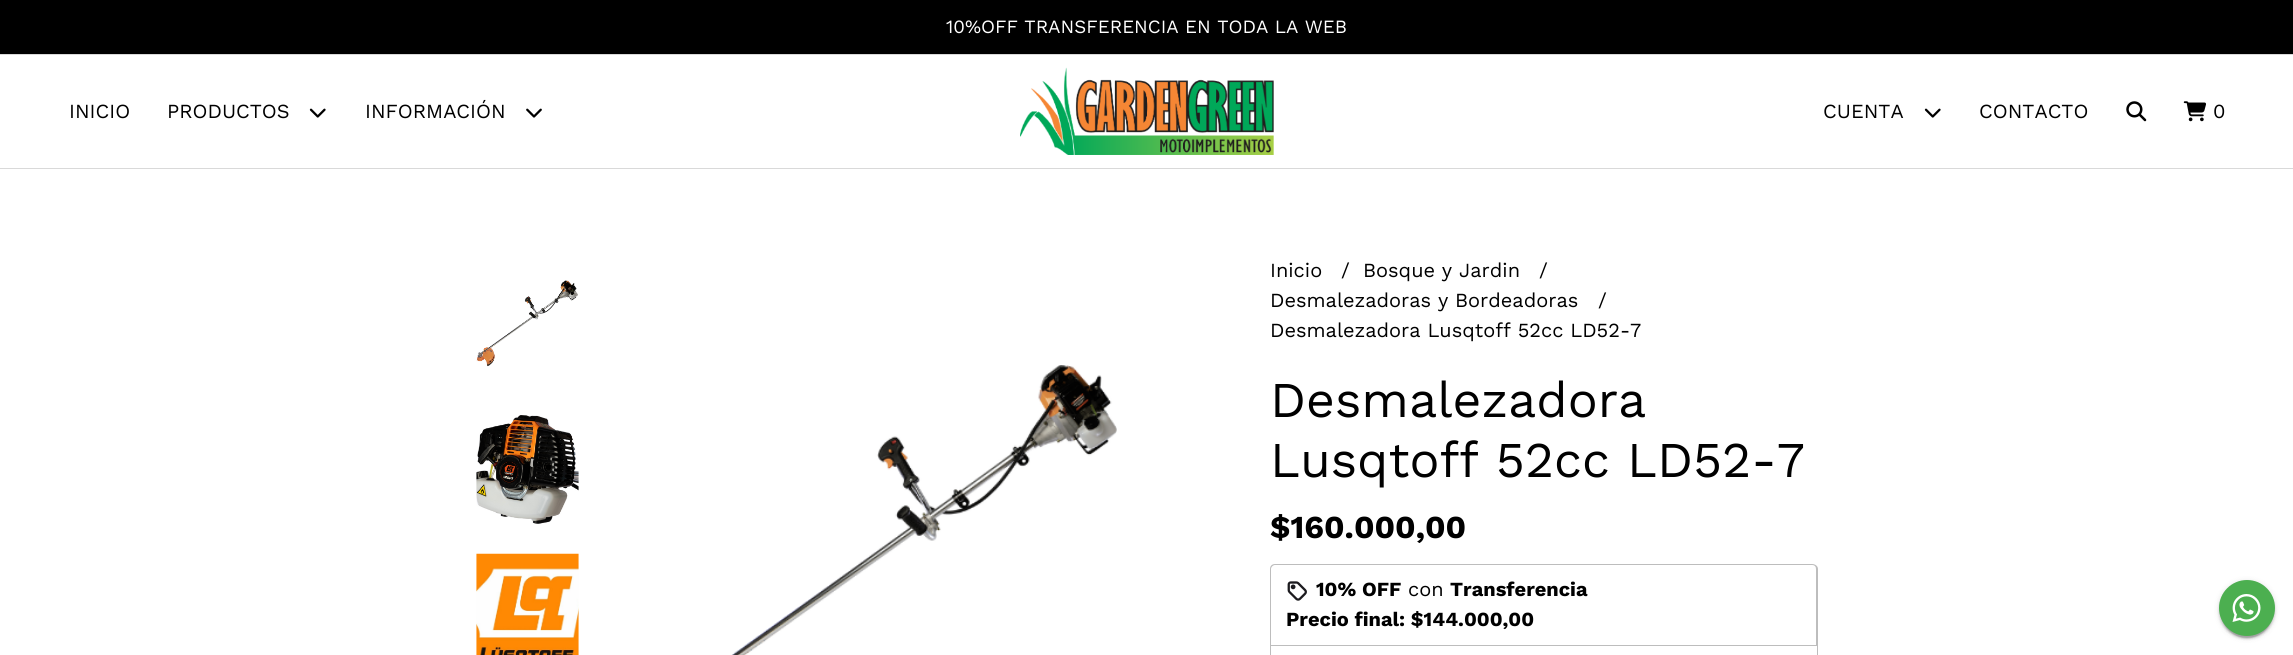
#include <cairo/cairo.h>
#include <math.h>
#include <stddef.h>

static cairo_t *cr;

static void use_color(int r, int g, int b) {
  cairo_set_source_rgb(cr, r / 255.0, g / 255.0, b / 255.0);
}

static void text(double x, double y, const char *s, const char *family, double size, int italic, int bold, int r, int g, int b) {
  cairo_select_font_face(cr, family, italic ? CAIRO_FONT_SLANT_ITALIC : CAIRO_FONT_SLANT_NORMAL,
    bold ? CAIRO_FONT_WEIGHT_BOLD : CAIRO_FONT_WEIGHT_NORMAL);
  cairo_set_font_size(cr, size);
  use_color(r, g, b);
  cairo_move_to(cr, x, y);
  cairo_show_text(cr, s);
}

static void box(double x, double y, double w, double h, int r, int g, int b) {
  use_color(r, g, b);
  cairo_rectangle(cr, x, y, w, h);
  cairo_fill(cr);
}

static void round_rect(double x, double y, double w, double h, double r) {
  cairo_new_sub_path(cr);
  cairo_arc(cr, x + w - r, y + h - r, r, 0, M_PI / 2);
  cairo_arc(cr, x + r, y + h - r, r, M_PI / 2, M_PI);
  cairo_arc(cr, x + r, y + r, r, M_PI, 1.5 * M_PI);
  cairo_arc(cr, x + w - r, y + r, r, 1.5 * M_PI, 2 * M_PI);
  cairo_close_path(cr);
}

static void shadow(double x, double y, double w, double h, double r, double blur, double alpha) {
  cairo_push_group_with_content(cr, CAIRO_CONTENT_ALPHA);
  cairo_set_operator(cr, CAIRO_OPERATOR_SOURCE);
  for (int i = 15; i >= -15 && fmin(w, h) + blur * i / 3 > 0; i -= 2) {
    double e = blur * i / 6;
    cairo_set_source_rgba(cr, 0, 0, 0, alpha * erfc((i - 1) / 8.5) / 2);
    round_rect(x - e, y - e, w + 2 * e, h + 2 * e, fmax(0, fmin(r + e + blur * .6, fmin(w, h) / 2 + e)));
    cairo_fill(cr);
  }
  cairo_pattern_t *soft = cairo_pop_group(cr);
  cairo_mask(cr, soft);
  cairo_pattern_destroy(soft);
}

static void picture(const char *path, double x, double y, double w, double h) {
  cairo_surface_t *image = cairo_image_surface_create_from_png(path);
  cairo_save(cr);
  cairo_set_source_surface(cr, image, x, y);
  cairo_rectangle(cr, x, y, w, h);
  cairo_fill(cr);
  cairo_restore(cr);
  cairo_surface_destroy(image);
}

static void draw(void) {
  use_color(255, 255, 255);
  cairo_paint(cr);
  box(0, 0, 2293, 54, 0, 0, 0);
  box(0, 54, 2293, 1, 217, 217, 217);
  box(0, 168, 2293, 1, 217, 217, 217);
  picture("img_01.png", 309, 108, 17, 10);
  picture("img_02.png", 526, 108, 16, 10);
  picture("img_03.png", 1020, 67, 254, 88);
  picture("img_01.png", 1924, 108, 17, 10);
  picture("img_04.png", 2126, 101, 21, 21);
  picture("img_05.png", 2183, 101, 23, 21);
  picture("img_06.png", 476, 280, 102, 87);
  picture("img_07.png", 476, 415, 103, 109);
  picture("img_08.png", 476, 553, 103, 102);
  picture("img_09.png", 731, 365, 386, 290);
  use_color(189, 189, 189);
  cairo_set_fill_rule(cr, CAIRO_FILL_RULE_EVEN_ODD);
  cairo_new_path(cr);
  cairo_move_to(cr, 1275, 564);
  cairo_line_to(cr, 1812, 564);
  cairo_curve_to(cr, 1815, 564, 1818, 566, 1818, 569);
  cairo_line_to(cr, 1818, 645);
  cairo_line_to(cr, 1270, 645);
  cairo_line_to(cr, 1270, 569);
  cairo_curve_to(cr, 1270, 566, 1272, 564, 1275, 564);
  cairo_close_path(cr);
  cairo_move_to(cr, 1275, 565);
  cairo_line_to(cr, 1812, 565);
  cairo_curve_to(cr, 1815, 565, 1816, 567, 1816, 569);
  cairo_line_to(cr, 1816, 645);
  cairo_line_to(cr, 1271, 645);
  cairo_line_to(cr, 1271, 569);
  cairo_curve_to(cr, 1271, 567, 1273, 565, 1275, 565);
  cairo_close_path(cr);
  cairo_fill(cr);
  picture("img_10.png", 1287, 581, 20, 20);
  cairo_rectangle(cr, 1270.5, 645.5, 547, 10);
  cairo_set_line_width(cr, 1);
  cairo_stroke(cr);
  use_color(0, 0, 0);
  shadow(2221, 586, 52, 52, 26, 0.5, 0.2);
  shadow(2219, 581, 56, 57, 28, 3, 0.12);
  shadow(2219, 583, 56, 56, 28, 1, 0.14);
  use_color(76, 175, 80);
  cairo_arc(cr, 2247, 608, 28, 0, 2 * M_PI);
  cairo_fill(cr);
  picture("img_11.png", 2232, 594, 29, 28);
  text(946, 33, "10%OFF TRANSFERENCIA EN TODA LA WEB", "Work Sans", 18.75, 0, 0, 255, 255, 255);
  text(69, 118, "INICIO", "Work Sans", 20, 0, 0, 0, 0, 0);
  text(167, 118, "PRODUCTOS", "Work Sans", 20, 0, 0, 0, 0, 0);
  text(365, 118, "INFORMACIÓN", "Work Sans", 20, 0, 0, 0, 0, 0);
  text(1823, 118, "CUENTA", "Work Sans", 20, 0, 0, 0, 0, 0);
  text(1979, 118, "CONTACTO", "Work Sans", 20, 0, 0, 0, 0, 0);
  text(2213, 118, "0", "Work Sans", 20, 0, 0, 0, 0, 0);
  text(1270, 277, "Inicio", "Work Sans", 20, 0, 0, 0, 0, 0);
  text(1341, 277, "/", "Work Sans", 20, 0, 0, 0, 0, 0);
  text(1363, 277, "Bosque y Jardin", "Work Sans", 20, 0, 0, 0, 0, 0);
  text(1539, 277, "/", "Work Sans", 20, 0, 0, 0, 0, 0);
  text(1270, 307, "Desmalezadoras y Bordeadoras", "Work Sans", 20, 0, 0, 0, 0, 0);
  text(1598, 307, "/", "Work Sans", 20, 0, 0, 0, 0, 0);
  text(1270, 337, "Desmalezadora Lusqtoff 52cc LD52-7", "Work Sans", 20, 0, 0, 0, 0, 0);
  text(1270, 417, "Desmalezadora", "Work Sans", 50, 0, 0, 0, 0, 0);
  text(1270, 477, "Lusqtoff 52cc LD52-7", "Work Sans", 50, 0, 0, 0, 0, 0);
  text(1270, 538, "$160.000,00", "Work Sans", 32, 0, 1, 0, 0, 0);
  text(1316, 596, "10% OFF", "Work Sans", 20, 0, 1, 0, 0, 0);
  text(1408, 596, "con", "Work Sans", 20, 0, 0, 0, 0, 0);
  text(1450, 596, "Transferencia", "Work Sans", 20, 0, 1, 0, 0, 0);
  text(1286, 626, "Precio final: $144.000,00", "Work Sans", 20, 0, 1, 0, 0, 0);
}

int main(void) {
  cairo_surface_t *surface = cairo_image_surface_create(CAIRO_FORMAT_RGB24, 2293, 655);
  cr = cairo_create(surface);
  cairo_font_options_t *options = cairo_font_options_create();
  cairo_font_options_set_hint_metrics(options, CAIRO_HINT_METRICS_OFF);
  cairo_font_options_set_hint_style(options, CAIRO_HINT_STYLE_NONE);
  cairo_set_font_options(cr, options);
  cairo_set_miter_limit(cr, 4);
  draw();
  cairo_surface_write_to_png(surface, "out.png");
  cairo_font_options_destroy(options);
  cairo_destroy(cr);
  cairo_surface_destroy(surface);
  return 0;
}
